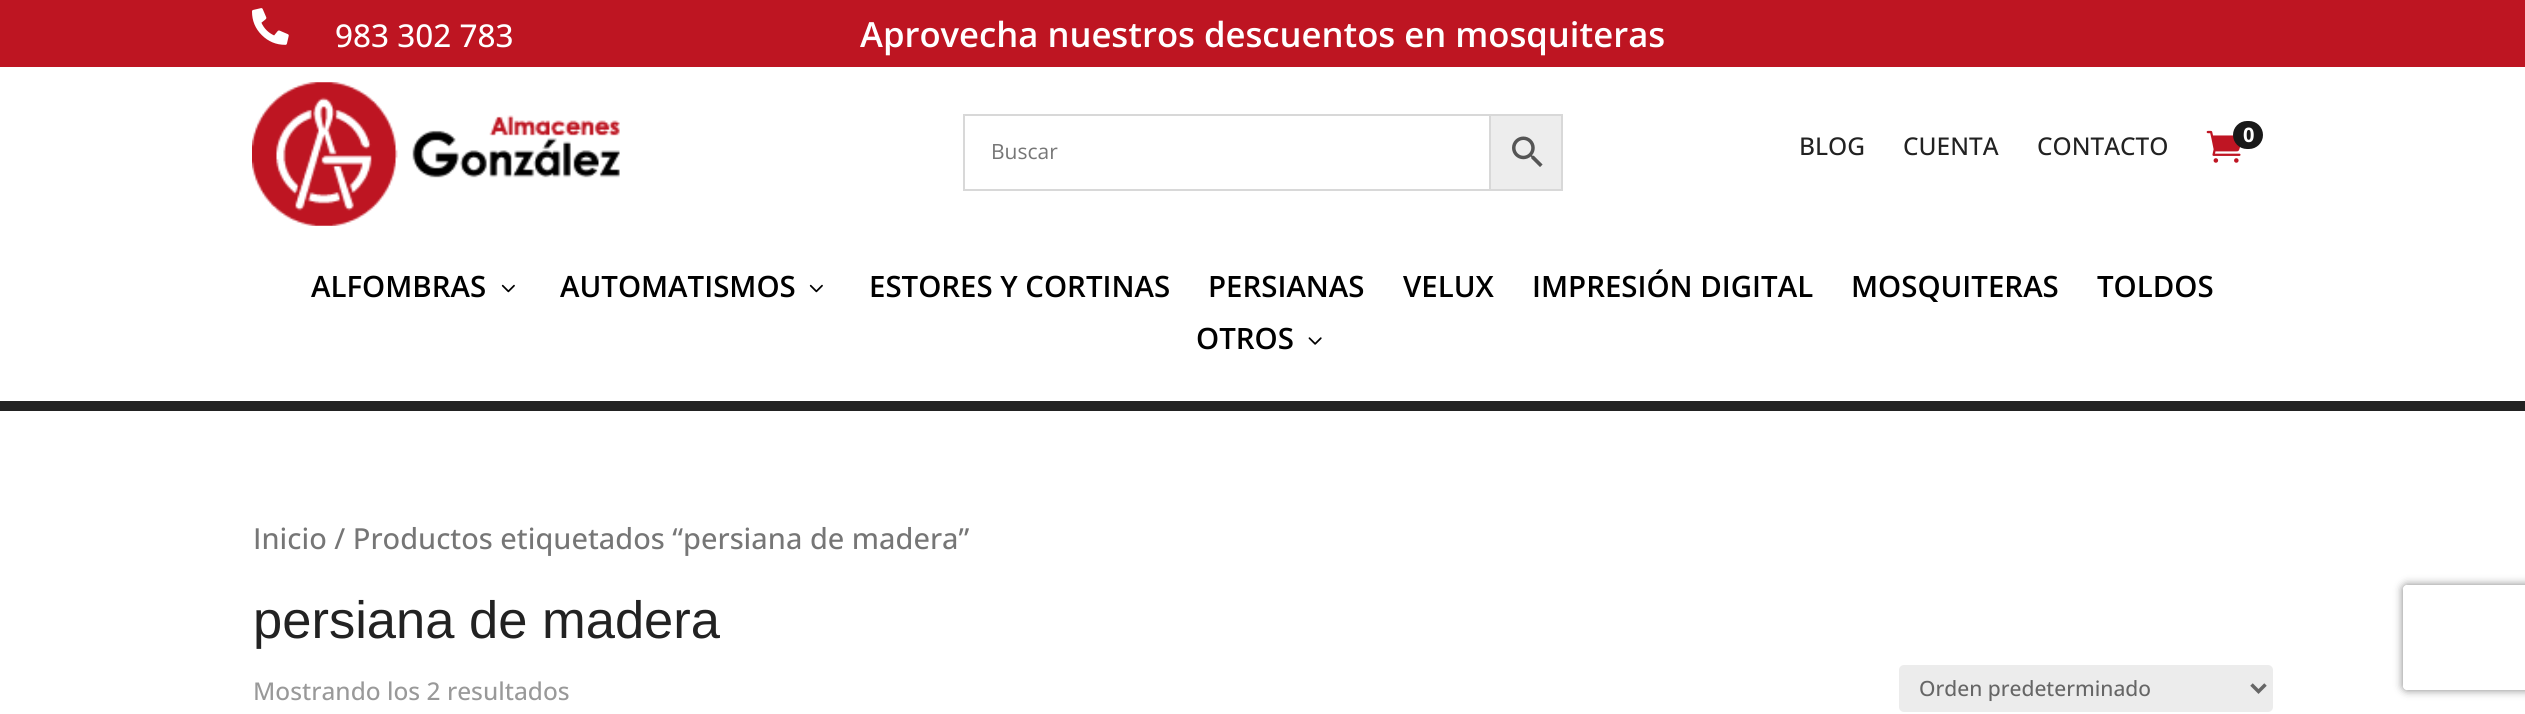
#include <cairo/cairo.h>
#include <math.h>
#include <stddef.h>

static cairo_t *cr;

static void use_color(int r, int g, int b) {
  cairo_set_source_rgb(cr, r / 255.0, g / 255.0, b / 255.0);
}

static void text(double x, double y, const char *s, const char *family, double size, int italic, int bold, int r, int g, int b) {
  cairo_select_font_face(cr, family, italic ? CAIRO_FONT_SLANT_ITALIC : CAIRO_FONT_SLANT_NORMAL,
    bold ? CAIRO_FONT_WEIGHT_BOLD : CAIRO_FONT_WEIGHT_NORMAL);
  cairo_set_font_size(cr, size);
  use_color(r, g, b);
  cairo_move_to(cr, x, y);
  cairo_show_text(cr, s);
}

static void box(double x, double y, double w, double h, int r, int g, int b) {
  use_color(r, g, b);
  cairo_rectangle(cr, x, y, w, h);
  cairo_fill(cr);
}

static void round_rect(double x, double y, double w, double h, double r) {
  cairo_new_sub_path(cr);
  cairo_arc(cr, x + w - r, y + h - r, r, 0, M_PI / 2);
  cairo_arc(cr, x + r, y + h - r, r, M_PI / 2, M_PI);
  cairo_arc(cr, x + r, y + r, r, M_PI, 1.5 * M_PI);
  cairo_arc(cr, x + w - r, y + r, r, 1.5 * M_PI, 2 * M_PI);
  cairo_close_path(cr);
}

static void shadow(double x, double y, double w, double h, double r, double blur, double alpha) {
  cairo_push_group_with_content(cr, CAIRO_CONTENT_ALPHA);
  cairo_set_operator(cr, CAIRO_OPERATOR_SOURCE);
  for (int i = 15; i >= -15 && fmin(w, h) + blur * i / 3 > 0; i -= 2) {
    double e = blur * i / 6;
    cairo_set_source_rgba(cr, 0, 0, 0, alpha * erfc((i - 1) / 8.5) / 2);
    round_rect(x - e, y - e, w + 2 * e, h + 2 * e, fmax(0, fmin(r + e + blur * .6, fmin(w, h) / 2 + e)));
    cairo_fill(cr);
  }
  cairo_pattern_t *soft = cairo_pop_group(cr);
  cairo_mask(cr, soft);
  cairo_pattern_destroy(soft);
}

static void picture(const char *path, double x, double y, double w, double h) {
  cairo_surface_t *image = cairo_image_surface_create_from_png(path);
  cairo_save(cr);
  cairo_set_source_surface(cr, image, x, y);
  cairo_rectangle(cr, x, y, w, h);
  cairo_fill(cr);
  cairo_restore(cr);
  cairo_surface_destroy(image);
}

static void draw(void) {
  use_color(255, 255, 255);
  cairo_paint(cr);
  box(0, 0, 2525, 67, 190, 21, 34);
  picture("img_01.png", 252, 8, 37, 37);
  box(0, 401, 2525, 10, 34, 34, 34);
  picture("img_02.png", 252, 82, 368, 144);
  use_color(237, 237, 237);
  cairo_rectangle(cr, 1490, 115, 72, 75);
  cairo_fill_preserve(cr);
  use_color(216, 216, 216);
  cairo_stroke(cr);
  cairo_rectangle(cr, 964, 115, 526, 75);
  cairo_stroke(cr);
  picture("img_03.png", 1512, 136, 31, 31);
  picture("img_04.png", 2206, 130, 35, 33);
  use_color(25, 25, 25);
  round_rect(2233, 121, 30, 28, 14);
  cairo_fill(cr);
  picture("img_05.png", 501, 284, 14, 9);
  picture("img_05.png", 809, 284, 14, 9);
  picture("img_06.png", 1308, 337, 14, 8);
  use_color(236, 236, 236);
  round_rect(1899, 665, 374, 47, 5);
  cairo_fill(cr);
  cairo_new_path(cr);
  cairo_move_to(cr, 2251.5, 684.5);
  cairo_line_to(cr, 2258.5, 691.5);
  cairo_line_to(cr, 2265.5, 684.5);
  use_color(102, 102, 102);
  cairo_set_line_width(cr, 3.5);
  cairo_stroke(cr);
  cairo_save(cr);
  cairo_set_fill_rule(cr, CAIRO_FILL_RULE_EVEN_ODD);
  cairo_new_path(cr);
  cairo_move_to(cr, 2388, 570);
  cairo_line_to(cr, 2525, 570);
  cairo_line_to(cr, 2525, 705);
  cairo_line_to(cr, 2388, 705);
  cairo_close_path(cr);
  cairo_move_to(cr, 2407, 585);
  cairo_line_to(cr, 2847, 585);
  cairo_curve_to(cr, 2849, 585, 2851, 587, 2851, 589);
  cairo_line_to(cr, 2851, 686);
  cairo_curve_to(cr, 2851, 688, 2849, 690, 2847, 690);
  cairo_line_to(cr, 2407, 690);
  cairo_curve_to(cr, 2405, 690, 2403, 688, 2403, 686);
  cairo_line_to(cr, 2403, 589);
  cairo_curve_to(cr, 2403, 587, 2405, 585, 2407, 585);
  cairo_close_path(cr);
  cairo_clip(cr);
  use_color(128, 128, 128);
  shadow(2403, 585, 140, 105, 4, 4.5, 1);
  cairo_restore(cr);
  text(335, 47, "983 302 783", "Open Sans Medium", 31.5, 0, 0, 255, 255, 255);
  text(860, 47, "Aprovecha nuestros descuentos en mosquiteras", "Open Sans SemiBold", 34.65, 0, 0, 255, 255, 255);
  text(991, 159, "Buscar", "Open Sans", 21, 0, 0, 118, 118, 118);
  text(2243, 142, "0", "Open Sans", 20, 0, 1, 255, 255, 255);
  text(1799, 155, "BLOG", "Open Sans Medium", 24.5, 0, 0, 34, 34, 34);
  text(1903, 155, "CUENTA", "Open Sans Medium", 24.5, 0, 0, 34, 34, 34);
  text(2037, 155, "CONTACTO", "Open Sans Medium", 24.5, 0, 0, 34, 34, 34);
  text(311, 297, "ALFOMBRAS", "Open Sans SemiBold", 29.4, 0, 0, 0, 0, 0);
  text(560, 297, "AUTOMATISMOS", "Open Sans SemiBold", 29.4, 0, 0, 0, 0, 0);
  text(869, 297, "ESTORES Y CORTINAS", "Open Sans SemiBold", 29.4, 0, 0, 0, 0, 0);
  text(1208, 297, "PERSIANAS", "Open Sans SemiBold", 29.4, 0, 0, 0, 0, 0);
  text(1403, 297, "VELUX", "Open Sans SemiBold", 29.4, 0, 0, 0, 0, 0);
  text(1532, 297, "IMPRESIÓN DIGITAL", "Open Sans SemiBold", 29.4, 0, 0, 0, 0, 0);
  text(1851, 297, "MOSQUITERAS", "Open Sans SemiBold", 29.4, 0, 0, 0, 0, 0);
  text(2097, 297, "TOLDOS", "Open Sans SemiBold", 29.4, 0, 0, 0, 0, 0);
  text(1196, 349, "OTROS", "Open Sans SemiBold", 29.4, 0, 0, 0, 0, 0);
  text(253, 549, "Inicio / Productos etiquetados “persiana de madera”", "Open Sans Medium", 29, 0, 0, 118, 118, 118);
  text(253, 638, "persiana de madera", "Liberation Sans", 52.5, 0, 0, 34, 34, 34);
  text(253, 700, "Mostrando los 2 resultados", "Open Sans Medium", 24.5, 0, 0, 153, 153, 153);
  text(1919, 696, "Orden predeterminado", "Open Sans Medium", 21, 0, 0, 102, 102, 102);
}

int main(void) {
  cairo_surface_t *surface = cairo_image_surface_create(CAIRO_FORMAT_RGB24, 2525, 714);
  cr = cairo_create(surface);
  cairo_font_options_t *options = cairo_font_options_create();
  cairo_font_options_set_hint_metrics(options, CAIRO_HINT_METRICS_OFF);
  cairo_font_options_set_hint_style(options, CAIRO_HINT_STYLE_NONE);
  cairo_set_font_options(cr, options);
  cairo_set_miter_limit(cr, 4);
  draw();
  cairo_surface_write_to_png(surface, "out.png");
  cairo_font_options_destroy(options);
  cairo_destroy(cr);
  cairo_surface_destroy(surface);
  return 0;
}
